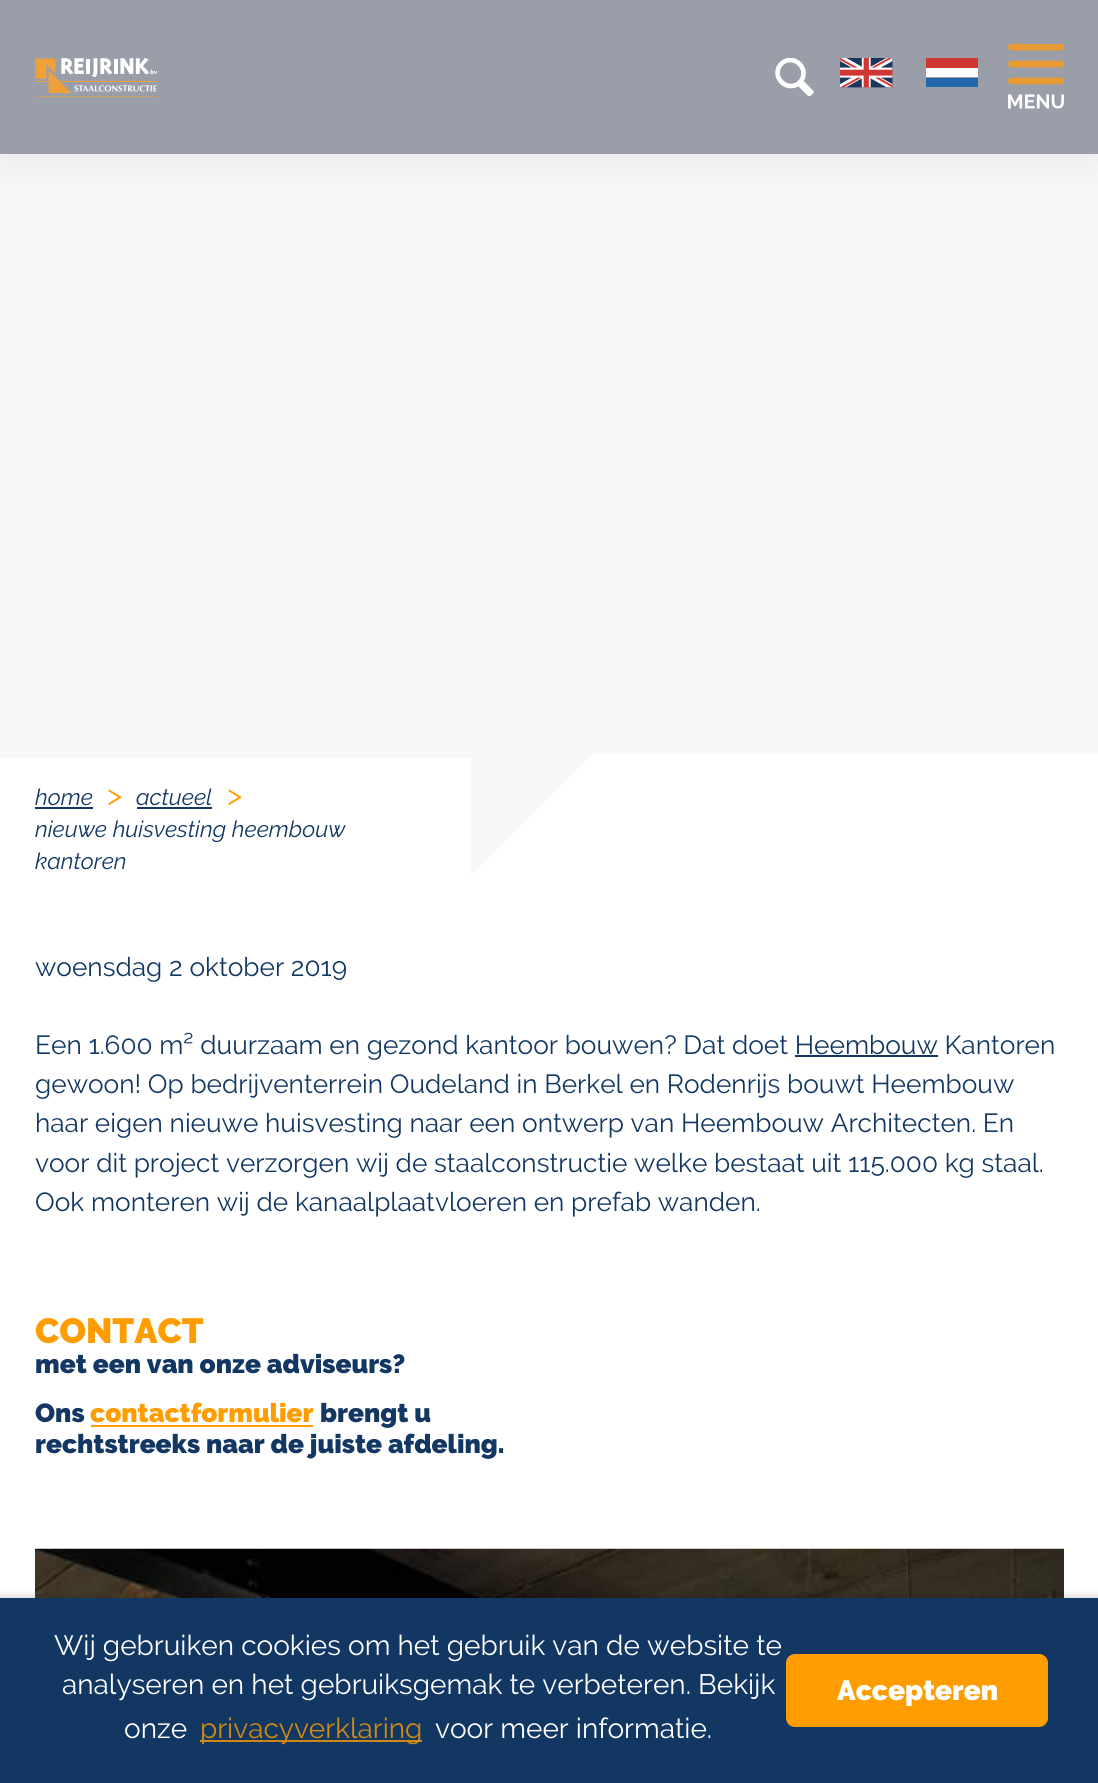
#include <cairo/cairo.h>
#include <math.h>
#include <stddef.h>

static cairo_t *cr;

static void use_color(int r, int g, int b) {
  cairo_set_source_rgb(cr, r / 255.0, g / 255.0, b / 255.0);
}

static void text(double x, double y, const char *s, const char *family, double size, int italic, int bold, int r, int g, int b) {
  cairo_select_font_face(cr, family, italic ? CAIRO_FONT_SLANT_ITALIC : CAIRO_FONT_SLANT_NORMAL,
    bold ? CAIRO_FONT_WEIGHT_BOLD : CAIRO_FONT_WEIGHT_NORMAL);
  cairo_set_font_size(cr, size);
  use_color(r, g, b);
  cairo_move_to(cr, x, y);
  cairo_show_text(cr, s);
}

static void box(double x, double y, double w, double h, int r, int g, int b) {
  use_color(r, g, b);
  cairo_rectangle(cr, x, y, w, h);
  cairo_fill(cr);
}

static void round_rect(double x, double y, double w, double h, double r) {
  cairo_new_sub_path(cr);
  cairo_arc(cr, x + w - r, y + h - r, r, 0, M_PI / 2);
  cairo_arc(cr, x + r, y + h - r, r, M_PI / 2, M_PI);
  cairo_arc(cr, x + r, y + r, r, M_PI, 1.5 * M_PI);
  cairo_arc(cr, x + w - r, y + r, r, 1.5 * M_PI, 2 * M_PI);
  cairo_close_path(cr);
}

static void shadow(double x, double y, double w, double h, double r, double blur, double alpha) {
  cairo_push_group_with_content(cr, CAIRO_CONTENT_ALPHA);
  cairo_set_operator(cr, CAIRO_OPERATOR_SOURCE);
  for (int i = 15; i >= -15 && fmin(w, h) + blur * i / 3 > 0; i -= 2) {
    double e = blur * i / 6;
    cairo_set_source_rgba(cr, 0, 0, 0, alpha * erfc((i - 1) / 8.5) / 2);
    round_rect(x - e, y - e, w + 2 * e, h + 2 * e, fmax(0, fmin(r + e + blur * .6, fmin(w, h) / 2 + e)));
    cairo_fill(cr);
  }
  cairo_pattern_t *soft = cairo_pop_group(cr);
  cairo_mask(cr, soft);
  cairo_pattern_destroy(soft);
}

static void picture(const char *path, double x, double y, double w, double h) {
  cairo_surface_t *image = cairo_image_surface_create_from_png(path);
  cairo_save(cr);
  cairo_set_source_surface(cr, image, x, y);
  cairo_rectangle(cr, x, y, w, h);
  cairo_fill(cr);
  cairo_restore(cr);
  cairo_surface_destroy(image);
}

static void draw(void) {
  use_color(255, 255, 255);
  cairo_paint(cr);
  box(0, 154, 1098, 721, 248, 248, 248);
  use_color(0, 0, 0);
  shadow(0, 0, 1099, 154, 0, 26, 0.08);
  box(0, 0, 1098, 154, 154, 158, 169);
  picture("img_01.png", 35, 58, 122, 39);
  picture("img_02.png", 775, 58, 39, 38);
  picture("img_03.png", 840, 58, 53, 30);
  box(926, 58, 52, 10, 206, 55, 49);
  box(926, 68, 52, 9, 255, 255, 255);
  box(926, 78, 52, 9, 35, 102, 172);
  picture("img_04.png", 1008, 44, 56, 65);
  cairo_save(cr);
  cairo_rectangle(cr, 0, 754, 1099, 121);
  cairo_clip(cr);
  use_color(255, 255, 255);
  cairo_new_path(cr);
  cairo_move_to(cr, 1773, 877);
  cairo_line_to(cr, -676, 877);
  cairo_line_to(cr, -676, 758);
  cairo_line_to(cr, 471, 758);
  cairo_line_to(cr, 471, 876);
  cairo_line_to(cr, 592, 754);
  cairo_line_to(cr, 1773, 754);
  cairo_close_path(cr);
  cairo_fill(cr);
  cairo_restore(cr);
  box(35, 807, 58, 2, 19, 55, 99);
  box(137, 807, 75, 2, 19, 55, 99);
  box(795, 1055, 143, 2, 19, 55, 99);
  box(91, 1425, 222, 2, 255, 157, 0);
  picture("img_05.png", 35, 1548, 1029, 50);
  use_color(0, 0, 0);
  shadow(0, 1598, 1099, 185, 0, 4.5, 0.25);
  box(0, 1598, 1098, 185, 19, 55, 99);
  box(200, 1740, 222, 2, 208, 137, 20);
  use_color(255, 157, 0);
  round_rect(787, 1655, 260, 71, 8);
  cairo_fill_preserve(cr);
  cairo_stroke(cr);
  text(35, 805, "home", "Raleway", 22.75, 1, 0, 19, 55, 99);
  text(107, 805, ">", "Raleway", 30, 0, 0, 255, 157, 0);
  text(136, 805, "actueel", "Raleway", 22.75, 1, 0, 19, 55, 99);
  text(227, 805, ">", "Raleway", 30, 0, 0, 255, 157, 0);
  text(35, 837, "nieuwe huisvesting heembouw", "Raleway", 22.75, 1, 0, 19, 55, 99);
  text(35, 869, "kantoren", "Raleway", 22.75, 1, 0, 19, 55, 99);
  text(35, 976, "woensdag 2 oktober 2019", "Raleway", 26.25, 0, 0, 19, 55, 99);
  text(35, 1054, "Een 1.600 m² duurzaam en gezond kantoor bouwen? Dat doet Heembouw Kantoren", "Raleway", 26.25, 0, 0, 19, 55, 99);
  text(35, 1093, "gewoon! Op bedrijventerrein Oudeland in Berkel en Rodenrijs bouwt Heembouw", "Raleway", 26.25, 0, 0, 19, 55, 99);
  text(35, 1132, "haar eigen nieuwe huisvesting naar een ontwerp van Heembouw Architecten. En", "Raleway", 26.25, 0, 0, 19, 55, 99);
  text(35, 1172, "voor dit project verzorgen wij de staalconstructie welke bestaat uit 115.000 kg staal.", "Raleway", 26.25, 0, 0, 19, 55, 99);
  text(35, 1211, "Ook monteren wij de kanaalplaatvloeren en prefab wanden.", "Raleway", 26.25, 0, 0, 19, 55, 99);
  text(35, 1343, "CONTACT", "Raleway Black", 35, 0, 0, 255, 157, 0);
  text(35, 1373, "met een van onze adviseurs?", "Raleway Black", 26.25, 0, 0, 19, 55, 99);
  text(35, 1422, "Ons", "Raleway Black", 26.25, 0, 0, 19, 55, 99);
  text(90, 1422, "contactformulier", "Raleway Black", 26.25, 0, 0, 255, 157, 0);
  text(320, 1422, "brengt u", "Raleway Black", 26.25, 0, 0, 19, 55, 99);
  text(35, 1453, "rechtstreeks naar de juiste afdeling.", "Raleway Black", 26.25, 0, 0, 19, 55, 99);
  text(54, 1655, "Wij gebruiken cookies om het gebruik van de website te", "Raleway", 28, 0, 0, 255, 255, 255);
  text(62, 1694, "analyseren en het gebruiksgemak te verbeteren. Bekijk", "Raleway", 28, 0, 0, 255, 255, 255);
  text(124, 1738, "onze", "Raleway", 28, 0, 0, 255, 255, 255);
  text(200, 1738, "privacyverklaring", "Raleway", 28, 0, 0, 208, 137, 20);
  text(435, 1738, "voor meer informatie.", "Raleway", 28, 0, 0, 255, 255, 255);
  text(837, 1700, "Accepteren", "Raleway Black", 28, 0, 0, 255, 255, 255);
}

int main(void) {
  cairo_surface_t *surface = cairo_image_surface_create(CAIRO_FORMAT_RGB24, 1098, 1783);
  cr = cairo_create(surface);
  cairo_font_options_t *options = cairo_font_options_create();
  cairo_font_options_set_hint_metrics(options, CAIRO_HINT_METRICS_OFF);
  cairo_font_options_set_hint_style(options, CAIRO_HINT_STYLE_NONE);
  cairo_set_font_options(cr, options);
  cairo_set_miter_limit(cr, 4);
  draw();
  cairo_surface_write_to_png(surface, "out.png");
  cairo_font_options_destroy(options);
  cairo_destroy(cr);
  cairo_surface_destroy(surface);
  return 0;
}
